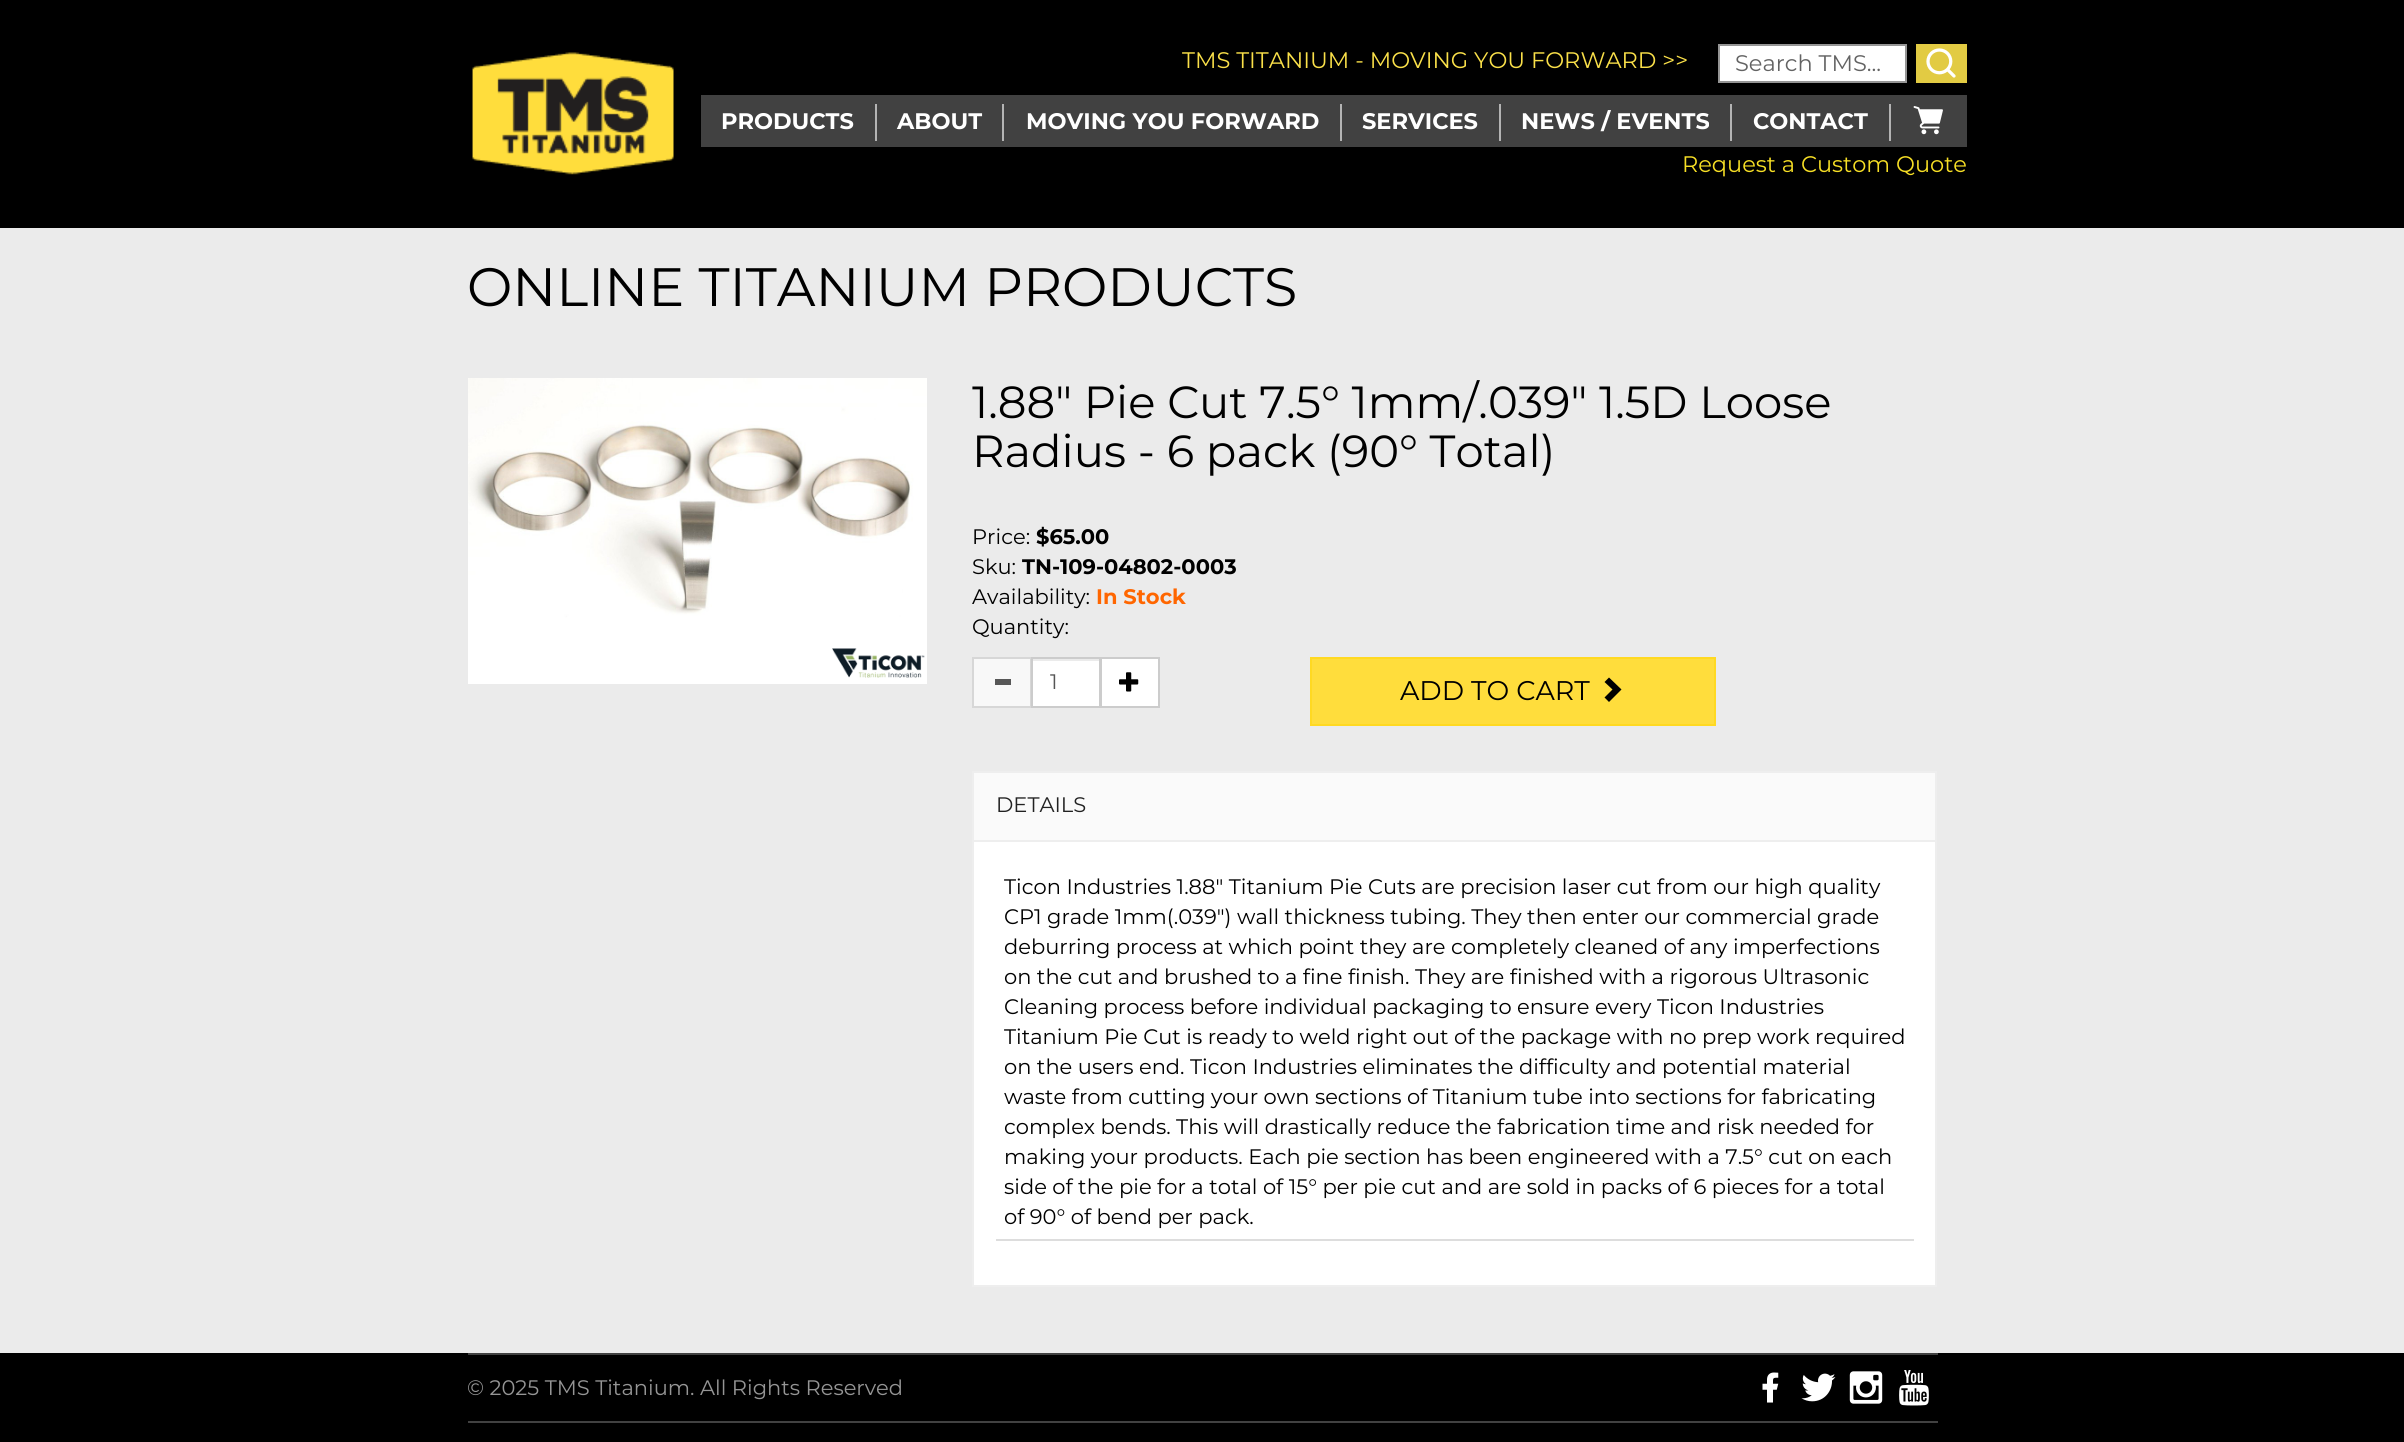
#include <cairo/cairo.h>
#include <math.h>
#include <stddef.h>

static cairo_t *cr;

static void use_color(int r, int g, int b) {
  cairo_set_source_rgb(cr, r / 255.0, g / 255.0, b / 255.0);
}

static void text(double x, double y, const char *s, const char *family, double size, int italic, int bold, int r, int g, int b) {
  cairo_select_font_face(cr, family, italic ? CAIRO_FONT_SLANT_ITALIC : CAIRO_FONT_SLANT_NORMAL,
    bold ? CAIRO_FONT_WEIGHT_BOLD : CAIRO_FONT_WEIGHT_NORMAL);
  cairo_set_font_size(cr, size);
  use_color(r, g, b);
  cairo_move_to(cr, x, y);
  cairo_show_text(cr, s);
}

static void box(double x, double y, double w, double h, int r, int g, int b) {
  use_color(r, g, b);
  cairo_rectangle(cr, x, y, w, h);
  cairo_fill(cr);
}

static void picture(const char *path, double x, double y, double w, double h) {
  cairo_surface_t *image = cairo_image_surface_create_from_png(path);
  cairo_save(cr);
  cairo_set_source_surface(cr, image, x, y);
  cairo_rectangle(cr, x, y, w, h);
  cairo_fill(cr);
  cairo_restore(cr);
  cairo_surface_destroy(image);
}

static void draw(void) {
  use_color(235, 235, 235);
  cairo_paint(cr);
  box(0, 0, 2404, 228, 0, 0, 0);
  picture("img_01.png", 472, 52, 202, 123);
  use_color(255, 255, 255);
  cairo_rectangle(cr, 1719, 45, 187, 37);
  cairo_fill_preserve(cr);
  use_color(149, 149, 149);
  cairo_stroke(cr);
  box(1916, 44, 51, 39, 226, 203, 67);
  picture("img_02.png", 1926, 48, 30, 30);
  box(701, 95, 1266, 52, 65, 65, 65);
  box(875, 104, 2, 37, 180, 180, 180);
  box(1002, 104, 2, 37, 180, 180, 180);
  box(1340, 104, 2, 37, 180, 180, 180);
  box(1499, 104, 2, 37, 180, 180, 180);
  box(1730, 104, 2, 37, 180, 180, 180);
  box(1889, 104, 2, 37, 180, 180, 180);
  picture("img_03.png", 1913, 106, 30, 29);
  picture("img_04.png", 468, 378, 459, 306);
  use_color(248, 248, 248);
  cairo_rectangle(cr, 973, 658, 58, 49);
  cairo_fill_preserve(cr);
  use_color(215, 215, 215);
  cairo_stroke(cr);
  box(995, 679, 16, 6, 87, 87, 87);
  box(1033, 661, 66, 45, 255, 255, 255);
  cairo_rectangle(cr, 1032, 658, 68, 49);
  use_color(204, 204, 204);
  cairo_stroke(cr);
  use_color(255, 255, 255);
  cairo_rectangle(cr, 1101, 658, 58, 49);
  cairo_fill_preserve(cr);
  use_color(204, 204, 204);
  cairo_stroke(cr);
  picture("img_05.png", 1119, 672, 20, 20);
  use_color(255, 221, 60);
  cairo_rectangle(cr, 1311, 658, 404, 67);
  cairo_fill_preserve(cr);
  use_color(255, 217, 34);
  cairo_stroke(cr);
  use_color(0, 0, 0);
  cairo_new_path(cr);
  cairo_move_to(cr, 1621.5, 689.5);
  cairo_line_to(cr, 1609, 702);
  cairo_line_to(cr, 1604.5, 697.5);
  cairo_line_to(cr, 1612.5, 689.5);
  cairo_line_to(cr, 1604.5, 682);
  cairo_line_to(cr, 1609, 677.5);
  cairo_close_path(cr);
  cairo_fill(cr);
  box(974, 842, 961, 443, 255, 255, 255);
  cairo_rectangle(cr, 973, 772, 963, 514);
  use_color(238, 238, 238);
  cairo_stroke(cr);
  box(974, 773, 961, 67, 250, 250, 250);
  box(974, 840, 961, 2, 238, 238, 238);
  box(996, 1239, 918, 2, 221, 221, 221);
  box(0, 1353, 2404, 89, 0, 0, 0);
  box(468, 1353, 1470, 2, 65, 65, 65);
  box(468, 1421, 1470, 2, 65, 65, 65);
  picture("img_06.png", 1762, 1372, 17, 31);
  picture("img_07.png", 1801, 1373, 35, 29);
  picture("img_08.png", 1849, 1371, 34, 33);
  picture("img_09.png", 1899, 1370, 30, 36);
  text(1182, 68, "TMS TITANIUM - MOVING YOU FORWARD >>", "Montserrat", 22.5, 0, 0, 250, 224, 73);
  text(1735, 71, "Search TMS...", "Montserrat", 22.5, 0, 0, 99, 99, 99);
  text(721, 129, "PRODUCTS", "Montserrat", 22.5, 0, 1, 255, 255, 255);
  text(897, 129, "ABOUT", "Montserrat", 22.5, 0, 1, 255, 255, 255);
  text(1026, 129, "MOVING YOU FORWARD", "Montserrat", 22.5, 0, 1, 255, 255, 255);
  text(1362, 129, "SERVICES", "Montserrat", 22.5, 0, 1, 255, 255, 255);
  text(1521, 129, "NEWS / EVENTS", "Montserrat", 22.5, 0, 1, 255, 255, 255);
  text(1753, 129, "CONTACT", "Montserrat", 22.5, 0, 1, 255, 255, 255);
  text(1682, 172, "Request a Custom Quote", "Montserrat", 22.5, 0, 0, 247, 223, 37);
  text(467, 306, "ONLINE TITANIUM PRODUCTS", "Montserrat", 54, 0, 0, 0, 0, 0);
  text(972, 418, "1.88\" Pie Cut 7.5° 1mm/.039\" 1.5D Loose", "Montserrat", 45, 0, 0, 0, 0, 0);
  text(972, 467, "Radius - 6 pack (90° Total)", "Montserrat", 45, 0, 0, 0, 0, 0);
  text(972, 544, "Price:", "Montserrat", 21, 0, 0, 0, 0, 0);
  text(1036, 544, "$65.00", "Montserrat", 21, 0, 1, 0, 0, 0);
  text(972, 574, "Sku:", "Montserrat", 21, 0, 0, 0, 0, 0);
  text(1022, 574, "TN-109-04802-0003", "Montserrat", 21, 0, 1, 0, 0, 0);
  text(972, 604, "Availability:", "Montserrat", 21, 0, 0, 0, 0, 0);
  text(1096, 604, "In Stock", "Montserrat", 21, 0, 1, 255, 102, 0);
  text(972, 634, "Quantity:", "Montserrat", 21, 0, 0, 0, 0, 0);
  text(1050, 689, "1", "Montserrat", 21, 0, 0, 85, 85, 85);
  text(1400, 700, "ADD TO CART", "Montserrat", 27, 0, 0, 0, 0, 0);
  text(996, 812, "DETAILS", "Montserrat", 21, 0, 0, 33, 33, 33);
  text(1004, 894, "Ticon Industries 1.88\" Titanium Pie Cuts are precision laser cut from our high quality", "Montserrat", 21, 0, 0, 0, 0, 0);
  text(1004, 924, "CP1 grade 1mm(.039\") wall thickness tubing. They then enter our commercial grade", "Montserrat", 21, 0, 0, 0, 0, 0);
  text(1004, 954, "deburring process at which point they are completely cleaned of any imperfections", "Montserrat", 21, 0, 0, 0, 0, 0);
  text(1004, 984, "on the cut and brushed to a fine finish. They are finished with a rigorous Ultrasonic", "Montserrat", 21, 0, 0, 0, 0, 0);
  text(1004, 1014, "Cleaning process before individual packaging to ensure every Ticon Industries", "Montserrat", 21, 0, 0, 0, 0, 0);
  text(1004, 1044, "Titanium Pie Cut is ready to weld right out of the package with no prep work required", "Montserrat", 21, 0, 0, 0, 0, 0);
  text(1004, 1074, "on the users end. Ticon Industries eliminates the difficulty and potential material", "Montserrat", 21, 0, 0, 0, 0, 0);
  text(1004, 1104, "waste from cutting your own sections of Titanium tube into sections for fabricating", "Montserrat", 21, 0, 0, 0, 0, 0);
  text(1004, 1134, "complex bends. This will drastically reduce the fabrication time and risk needed for", "Montserrat", 21, 0, 0, 0, 0, 0);
  text(1004, 1164, "making your products. Each pie section has been engineered with a 7.5° cut on each", "Montserrat", 21, 0, 0, 0, 0, 0);
  text(1004, 1194, "side of the pie for a total of 15° per pie cut and are sold in packs of 6 pieces for a total", "Montserrat", 21, 0, 0, 0, 0, 0);
  text(1004, 1224, "of 90° of bend per pack.", "Montserrat", 21, 0, 0, 0, 0, 0);
  text(467, 1395, "© 2025 TMS Titanium. All Rights Reserved", "Montserrat", 21, 0, 0, 149, 149, 149);
}

int main(void) {
  cairo_surface_t *surface = cairo_image_surface_create(CAIRO_FORMAT_RGB24, 2404, 1442);
  cr = cairo_create(surface);
  cairo_font_options_t *options = cairo_font_options_create();
  cairo_font_options_set_hint_metrics(options, CAIRO_HINT_METRICS_OFF);
  cairo_font_options_set_hint_style(options, CAIRO_HINT_STYLE_NONE);
  cairo_set_font_options(cr, options);
  cairo_set_miter_limit(cr, 4);
  draw();
  cairo_surface_write_to_png(surface, "out.png");
  cairo_font_options_destroy(options);
  cairo_destroy(cr);
  cairo_surface_destroy(surface);
  return 0;
}
